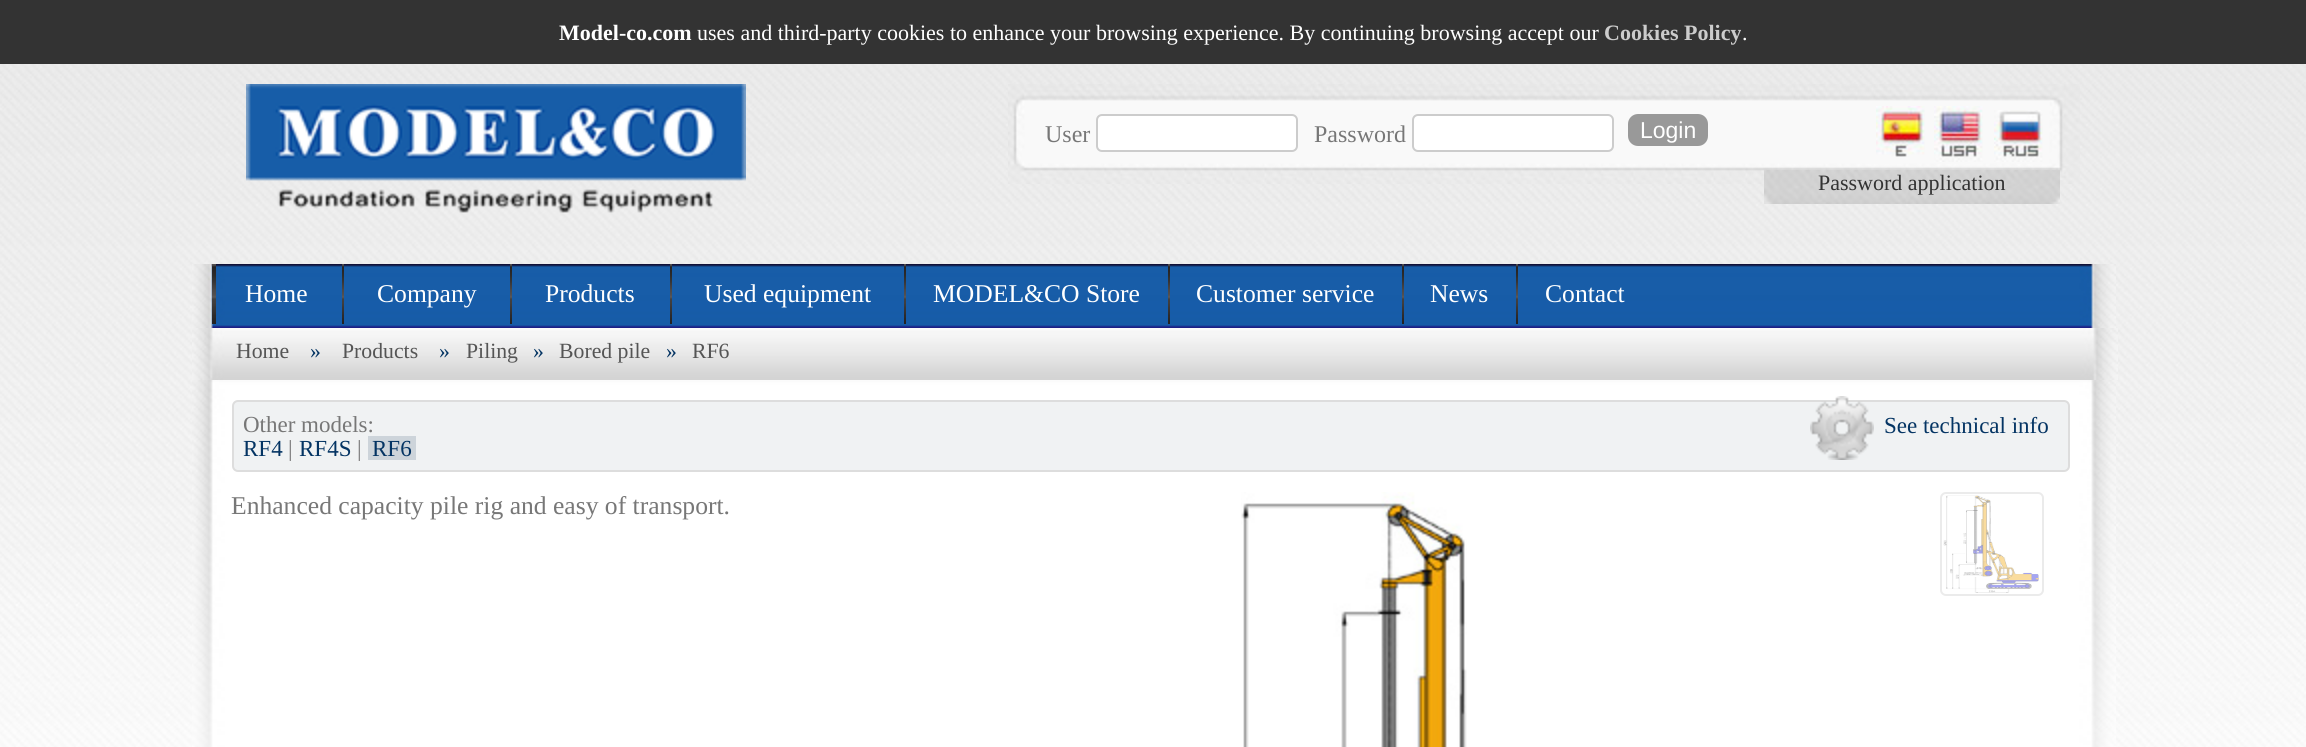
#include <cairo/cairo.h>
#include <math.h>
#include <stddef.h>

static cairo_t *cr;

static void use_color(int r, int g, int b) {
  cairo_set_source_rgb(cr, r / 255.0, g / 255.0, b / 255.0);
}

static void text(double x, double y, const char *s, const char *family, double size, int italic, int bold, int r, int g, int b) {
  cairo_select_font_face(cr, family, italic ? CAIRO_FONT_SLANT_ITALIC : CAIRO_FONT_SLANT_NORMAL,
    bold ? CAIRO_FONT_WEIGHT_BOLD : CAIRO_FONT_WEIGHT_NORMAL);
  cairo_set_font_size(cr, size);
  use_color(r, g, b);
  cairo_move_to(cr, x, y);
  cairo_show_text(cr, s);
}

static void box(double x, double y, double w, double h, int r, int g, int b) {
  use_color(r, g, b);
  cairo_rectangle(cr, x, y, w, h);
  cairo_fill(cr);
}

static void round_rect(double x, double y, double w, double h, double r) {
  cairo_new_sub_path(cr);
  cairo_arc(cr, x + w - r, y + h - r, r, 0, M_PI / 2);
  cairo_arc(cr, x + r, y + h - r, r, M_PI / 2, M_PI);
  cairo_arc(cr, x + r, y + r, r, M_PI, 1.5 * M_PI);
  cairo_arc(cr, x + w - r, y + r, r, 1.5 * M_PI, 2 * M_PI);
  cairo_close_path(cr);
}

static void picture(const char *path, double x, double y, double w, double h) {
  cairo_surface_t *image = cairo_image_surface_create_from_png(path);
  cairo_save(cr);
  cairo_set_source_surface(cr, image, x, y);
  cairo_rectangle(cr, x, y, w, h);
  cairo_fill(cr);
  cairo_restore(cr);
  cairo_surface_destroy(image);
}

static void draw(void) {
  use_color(255, 255, 255);
  cairo_paint(cr);
  picture("img_01.png", 0, 64, 2306, 683);
  box(0, 0, 2306, 64, 51, 51, 51);
  picture("img_02.png", 246, 84, 500, 129);
  picture("img_03.png", 1008, 84, 1072, 100);
  use_color(255, 255, 255);
  round_rect(1097, 115, 200, 36, 5);
  cairo_fill_preserve(cr);
  use_color(204, 204, 204);
  cairo_stroke(cr);
  use_color(255, 255, 255);
  round_rect(1413, 115, 200, 36, 5);
  cairo_fill_preserve(cr);
  use_color(204, 204, 204);
  cairo_stroke(cr);
  use_color(153, 153, 153);
  round_rect(1628, 114, 80, 32, 10);
  cairo_fill(cr);
  picture("img_04.png", 1876, 106, 49, 51);
  picture("img_05.png", 1934, 106, 49, 56);
  picture("img_06.png", 1994, 110, 49, 52);
  picture("img_07.png", 1764, 170, 296, 34);
  picture("img_08.png", 192, 264, 1924, 64);
  picture("img_09.png", 212, 264, 4, 60);
  picture("img_10.png", 342, 264, 2, 60);
  picture("img_10.png", 510, 264, 2, 60);
  picture("img_10.png", 670, 264, 2, 60);
  picture("img_10.png", 904, 264, 2, 60);
  picture("img_10.png", 1168, 264, 2, 60);
  picture("img_10.png", 1402, 264, 2, 60);
  picture("img_10.png", 1516, 264, 2, 60);
  picture("img_11.png", 192, 328, 1926, 52);
  picture("img_12.png", 192, 380, 1924, 367);
  use_color(240, 242, 243);
  round_rect(233, 401, 1836, 70, 5);
  cairo_fill_preserve(cr);
  use_color(221, 221, 221);
  cairo_stroke(cr);
  picture("img_13.png", 1810, 396, 64, 64);
  box(368, 436, 48, 24, 205, 212, 218);
  picture("img_14.png", 1241, 492, 226, 255);
  round_rect(1941, 493, 102, 102, 5);
  use_color(235, 235, 235);
  cairo_stroke(cr);
  picture("img_15.png", 1943, 495, 96, 98);
  text(559, 40, "Model-co.com", "Liberation Serif", 22, 0, 1, 255, 255, 255);
  text(697, 40, "uses and third-party cookies to enhance your browsing experience. By continuing browsing accept our", "Liberation Serif", 22, 0, 0, 255, 255, 255);
  text(1604, 40, "Cookies Policy", "Liberation Serif", 22, 0, 1, 204, 204, 204);
  text(1742, 40, ".", "Liberation Serif", 22, 0, 0, 255, 255, 255);
  text(1045, 142, "User", "Liberation Serif", 24, 0, 0, 119, 119, 119);
  text(1314, 142, "Password", "Liberation Serif", 24, 0, 0, 119, 119, 119);
  text(1640, 138, "Login", "Liberation Sans", 23, 0, 0, 255, 255, 255);
  text(1818, 190, "Password application", "Liberation Serif", 22, 0, 0, 51, 51, 51);
  text(245, 302, "Home", "Liberation Serif", 25.6, 0, 0, 255, 255, 255);
  text(377, 302, "Company", "Liberation Serif", 25.6, 0, 0, 255, 255, 255);
  text(545, 302, "Products", "Liberation Serif", 25.6, 0, 0, 255, 255, 255);
  text(704, 302, "Used equipment", "Liberation Serif", 25.6, 0, 0, 255, 255, 255);
  text(933, 302, "MODEL&CO Store", "Liberation Serif", 25.6, 0, 0, 255, 255, 255);
  text(1196, 302, "Customer service", "Liberation Serif", 25.6, 0, 0, 255, 255, 255);
  text(1430, 302, "News", "Liberation Serif", 25.6, 0, 0, 255, 255, 255);
  text(1545, 302, "Contact", "Liberation Serif", 25.6, 0, 0, 255, 255, 255);
  text(236, 358, "Home", "Liberation Serif", 21.75, 0, 0, 85, 85, 85);
  text(310, 358, "»", "Liberation Serif", 21.75, 0, 0, 4, 52, 99);
  text(342, 358, "Products", "Liberation Serif", 21.75, 0, 0, 85, 85, 85);
  text(439, 358, "»", "Liberation Serif", 21.75, 0, 0, 4, 52, 99);
  text(466, 358, "Piling", "Liberation Serif", 21.75, 0, 0, 85, 85, 85);
  text(533, 358, "»", "Liberation Serif", 21.75, 0, 0, 4, 52, 99);
  text(559, 358, "Bored pile", "Liberation Serif", 21.75, 0, 0, 85, 85, 85);
  text(666, 358, "»", "Liberation Serif", 21.75, 0, 0, 4, 52, 99);
  text(692, 358, "RF6", "Liberation Serif", 21.75, 0, 0, 85, 85, 85);
  text(243, 432, "Other models:", "Liberation Serif", 23, 0, 0, 119, 119, 119);
  text(1884, 433, "See technical info", "Liberation Serif", 23, 0, 0, 4, 52, 99);
  text(243, 456, "RF4", "Liberation Serif", 23, 0, 0, 4, 52, 99);
  text(288, 456, "|", "Liberation Serif", 23, 0, 0, 119, 119, 119);
  text(299, 456, "RF4S", "Liberation Serif", 23, 0, 0, 4, 52, 99);
  text(357, 456, "|", "Liberation Serif", 23, 0, 0, 119, 119, 119);
  text(372, 456, "RF6", "Liberation Serif", 23, 0, 0, 4, 52, 99);
  text(231, 514, "Enhanced capacity pile rig and easy of transport.", "Liberation Serif", 25.6, 0, 0, 119, 119, 119);
}

int main(void) {
  cairo_surface_t *surface = cairo_image_surface_create(CAIRO_FORMAT_RGB24, 2306, 747);
  cr = cairo_create(surface);
  cairo_font_options_t *options = cairo_font_options_create();
  cairo_font_options_set_hint_metrics(options, CAIRO_HINT_METRICS_OFF);
  cairo_font_options_set_hint_style(options, CAIRO_HINT_STYLE_NONE);
  cairo_set_font_options(cr, options);
  cairo_set_miter_limit(cr, 4);
  draw();
  cairo_surface_write_to_png(surface, "out.png");
  cairo_font_options_destroy(options);
  cairo_destroy(cr);
  cairo_surface_destroy(surface);
  return 0;
}
